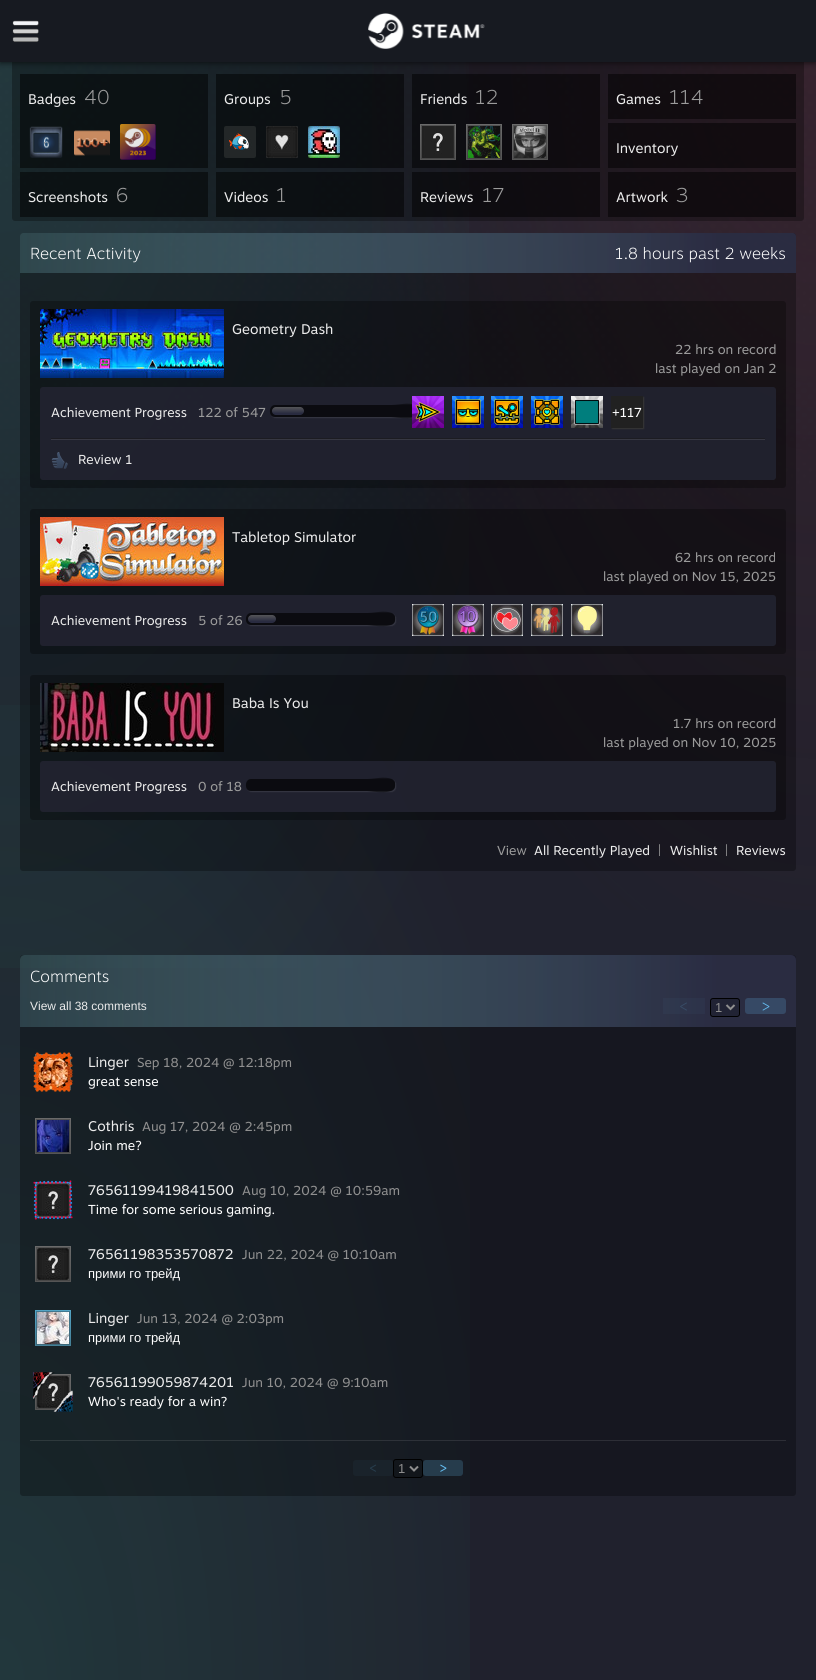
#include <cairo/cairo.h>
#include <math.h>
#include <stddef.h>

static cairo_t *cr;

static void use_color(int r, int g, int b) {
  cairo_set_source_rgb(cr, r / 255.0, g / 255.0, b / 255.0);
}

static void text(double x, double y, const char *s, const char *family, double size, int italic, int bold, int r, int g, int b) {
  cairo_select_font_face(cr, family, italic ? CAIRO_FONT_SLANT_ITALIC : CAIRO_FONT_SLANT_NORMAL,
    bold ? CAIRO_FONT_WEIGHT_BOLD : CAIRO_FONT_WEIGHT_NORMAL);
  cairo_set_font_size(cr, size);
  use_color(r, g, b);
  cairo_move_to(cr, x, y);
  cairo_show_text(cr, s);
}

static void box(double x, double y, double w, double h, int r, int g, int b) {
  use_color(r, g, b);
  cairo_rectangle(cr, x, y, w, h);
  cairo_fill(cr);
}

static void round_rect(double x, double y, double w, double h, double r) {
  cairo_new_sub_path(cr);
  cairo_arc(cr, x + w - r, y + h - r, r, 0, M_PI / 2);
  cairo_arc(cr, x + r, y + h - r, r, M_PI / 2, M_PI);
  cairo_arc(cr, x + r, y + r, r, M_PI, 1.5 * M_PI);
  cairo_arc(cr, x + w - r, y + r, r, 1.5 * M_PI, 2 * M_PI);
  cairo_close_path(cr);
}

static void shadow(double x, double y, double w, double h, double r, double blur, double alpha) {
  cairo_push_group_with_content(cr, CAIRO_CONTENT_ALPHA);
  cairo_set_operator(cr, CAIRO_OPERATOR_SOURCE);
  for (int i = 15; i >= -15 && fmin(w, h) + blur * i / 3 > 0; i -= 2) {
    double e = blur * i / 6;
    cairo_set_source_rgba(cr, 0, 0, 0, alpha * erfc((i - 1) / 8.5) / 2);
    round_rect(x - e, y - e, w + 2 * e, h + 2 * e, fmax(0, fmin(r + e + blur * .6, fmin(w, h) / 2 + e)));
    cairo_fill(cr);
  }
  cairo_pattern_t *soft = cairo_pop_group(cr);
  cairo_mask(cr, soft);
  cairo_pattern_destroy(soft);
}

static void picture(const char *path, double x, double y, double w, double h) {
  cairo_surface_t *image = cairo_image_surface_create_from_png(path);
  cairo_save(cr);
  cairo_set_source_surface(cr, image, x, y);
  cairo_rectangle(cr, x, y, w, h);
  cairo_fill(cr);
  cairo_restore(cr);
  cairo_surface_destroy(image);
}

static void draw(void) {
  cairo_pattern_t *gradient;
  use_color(32, 33, 45);
  cairo_paint(cr);
  picture("img_03.png", 0, 62, 816, 543);
  gradient = cairo_pattern_create_radial(0, 0, 0, 0, 0, 1);
  cairo_pattern_set_matrix(gradient, &(cairo_matrix_t){1.0 / 1154, 0, 0, 1.0 / 2386, -1.0 * 0 / 1154, -1.0 * 1680 / 2386});
  cairo_pattern_add_color_stop_rgba(gradient, 0, 0.196, 1, 0.757, 0.1);
  cairo_pattern_add_color_stop_rgba(gradient, 0.52, 0.196, 1, 0.757, 0);
  cairo_set_source(cr, gradient);
  cairo_pattern_destroy(gradient);
  cairo_rectangle(cr, 0, 705, 470, 975);
  cairo_fill(cr);
  gradient = cairo_pattern_create_radial(0, 0, 0, 0, 0, 1);
  cairo_pattern_set_matrix(gradient, &(cairo_matrix_t){1.0 / 1154, 0, 0, 1.0 / 2386, -1.0 * 0 / 1154, -1.0 * -7 / 2386});
  cairo_pattern_add_color_stop_rgba(gradient, 0, 0.196, 1, 0.757, 0.1);
  cairo_pattern_add_color_stop_rgba(gradient, 0.52, 0.196, 1, 0.757, 0);
  cairo_set_source(cr, gradient);
  cairo_pattern_destroy(gradient);
  cairo_rectangle(cr, 0, 62, 469, 906);
  cairo_fill(cr);
  gradient = cairo_pattern_create_radial(0, 0, 0, 0, 0, 1);
  cairo_pattern_set_matrix(gradient, &(cairo_matrix_t){1.0 / 816, 0, 0, 1.0 / 1687, -1.0 * 816 / 816, -1.0 * -7 / 1687});
  cairo_pattern_add_color_stop_rgba(gradient, 0, 0.427, 0.149, 0.173, 0.3);
  cairo_pattern_add_color_stop_rgba(gradient, 0.61, 0.427, 0.149, 0.173, 0);
  cairo_set_source(cr, gradient);
  cairo_pattern_destroy(gradient);
  cairo_rectangle(cr, 372, 62, 444, 848);
  cairo_fill(cr);
  cairo_set_source_rgba(cr, 0, 0, 0, 0.3);
  round_rect(12, 17, 792, 204, 3);
  cairo_fill(cr);
  use_color(0, 0, 0);
  shadow(0, 0, 816, 62, 0, 3.5, 0.75);
  box(0, 0, 816, 62, 23, 26, 33);
  picture("img_01.png", 12, 20, 27, 22);
  picture("img_02.png", 368, 13, 117, 36);
  cairo_set_source_rgba(cr, 0, 0, 0, 0.5);
  cairo_rectangle(cr, 20, 74, 188, 94);
  cairo_fill(cr);
  picture("img_04.png", 29, 126, 34, 32);
  picture("img_05.png", 74, 130, 36, 26);
  picture("img_06.png", 120, 124, 36, 36);
  cairo_rectangle(cr, 216, 74, 188, 94);
  cairo_fill(cr);
  picture("img_07.png", 224, 126, 32, 32);
  picture("img_08.png", 266, 126, 32, 32);
  picture("img_09.png", 308, 126, 32, 32);
  cairo_rectangle(cr, 412, 74, 188, 94);
  cairo_fill(cr);
  gradient = cairo_pattern_create_linear(438, 124, 438, 160);
  cairo_pattern_add_color_stop_rgba(gradient, 0.05, 0.416, 0.416, 0.416, 1);
  cairo_pattern_add_color_stop_rgba(gradient, 0.95, 0.333, 0.333, 0.333, 1);
  cairo_set_source(cr, gradient);
  cairo_pattern_destroy(gradient);
  cairo_rectangle(cr, 420, 124, 36, 36);
  cairo_fill(cr);
  gradient = cairo_pattern_create_linear(438, 125, 438, 159);
  cairo_pattern_add_color_stop_rgba(gradient, 0.05, 0.318, 0.318, 0.318, 1);
  cairo_pattern_add_color_stop_rgba(gradient, 0.95, 0.278, 0.278, 0.278, 1);
  cairo_set_source(cr, gradient);
  cairo_pattern_destroy(gradient);
  cairo_rectangle(cr, 421, 125, 34, 34);
  cairo_fill(cr);
  picture("img_10.png", 422, 126, 32, 32);
  gradient = cairo_pattern_create_linear(484, 124, 484, 160);
  cairo_pattern_add_color_stop_rgba(gradient, 0.05, 0.416, 0.416, 0.416, 1);
  cairo_pattern_add_color_stop_rgba(gradient, 0.95, 0.333, 0.333, 0.333, 1);
  cairo_set_source(cr, gradient);
  cairo_pattern_destroy(gradient);
  cairo_rectangle(cr, 466, 124, 36, 36);
  cairo_fill(cr);
  gradient = cairo_pattern_create_linear(484, 125, 484, 159);
  cairo_pattern_add_color_stop_rgba(gradient, 0.05, 0.318, 0.318, 0.318, 1);
  cairo_pattern_add_color_stop_rgba(gradient, 0.95, 0.278, 0.278, 0.278, 1);
  cairo_set_source(cr, gradient);
  cairo_pattern_destroy(gradient);
  cairo_rectangle(cr, 467, 125, 34, 34);
  cairo_fill(cr);
  picture("img_11.png", 468, 126, 32, 32);
  gradient = cairo_pattern_create_linear(530, 124, 530, 160);
  cairo_pattern_add_color_stop_rgba(gradient, 0.05, 0.416, 0.416, 0.416, 1);
  cairo_pattern_add_color_stop_rgba(gradient, 0.95, 0.333, 0.333, 0.333, 1);
  cairo_set_source(cr, gradient);
  cairo_pattern_destroy(gradient);
  cairo_rectangle(cr, 512, 124, 36, 36);
  cairo_fill(cr);
  gradient = cairo_pattern_create_linear(530, 125, 530, 159);
  cairo_pattern_add_color_stop_rgba(gradient, 0.05, 0.318, 0.318, 0.318, 1);
  cairo_pattern_add_color_stop_rgba(gradient, 0.95, 0.278, 0.278, 0.278, 1);
  cairo_set_source(cr, gradient);
  cairo_pattern_destroy(gradient);
  cairo_rectangle(cr, 513, 125, 34, 34);
  cairo_fill(cr);
  picture("img_12.png", 514, 126, 32, 32);
  cairo_set_source_rgba(cr, 0, 0, 0, 0.5);
  cairo_rectangle(cr, 608, 74, 188, 45);
  cairo_fill(cr);
  cairo_rectangle(cr, 608, 123, 188, 45);
  cairo_fill(cr);
  cairo_rectangle(cr, 20, 172, 188, 45);
  cairo_fill(cr);
  cairo_rectangle(cr, 216, 172, 188, 45);
  cairo_fill(cr);
  cairo_rectangle(cr, 412, 172, 188, 45);
  cairo_fill(cr);
  cairo_rectangle(cr, 608, 172, 188, 45);
  cairo_fill(cr);
  cairo_set_source_rgba(cr, 0, 0, 0, 0.3);
  round_rect(20, 233, 776, 638, 3);
  cairo_fill(cr);
  gradient = cairo_pattern_create_linear(20, 253, 796, 253);
  cairo_pattern_add_color_stop_rgba(gradient, 0, 0.451, 0.678, 0.722, 0.25);
  cairo_pattern_add_color_stop_rgba(gradient, 0.9, 0.169, 0.176, 0.267, 0.93);
  cairo_set_source(cr, gradient);
  cairo_pattern_destroy(gradient);
  cairo_new_path(cr);
  cairo_move_to(cr, 23, 233);
  cairo_line_to(cr, 793, 233);
  cairo_curve_to(cr, 794.5, 233, 796, 234.5, 796, 236);
  cairo_line_to(cr, 796, 273);
  cairo_line_to(cr, 20, 273);
  cairo_line_to(cr, 20, 236);
  cairo_curve_to(cr, 20, 234.5, 21.5, 233, 23, 233);
  cairo_close_path(cr);
  cairo_fill(cr);
  cairo_set_source_rgba(cr, 0, 0, 0, 0.3);
  round_rect(30, 301, 756, 187, 3);
  cairo_fill(cr);
  picture("img_13.png", 40, 309, 184, 69);
  cairo_set_source_rgba(cr, 0.133, 0.137, 0.188, 0.93);
  round_rect(40, 387, 736, 93, 3);
  cairo_fill(cr);
  cairo_save(cr);
  cairo_set_fill_rule(cr, CAIRO_FILL_RULE_EVEN_ODD);
  cairo_new_path(cr);
  cairo_move_to(cr, 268, 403);
  cairo_line_to(cr, 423, 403);
  cairo_line_to(cr, 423, 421);
  cairo_line_to(cr, 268, 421);
  cairo_close_path(cr);
  cairo_move_to(cr, 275, 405);
  cairo_line_to(cr, 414, 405);
  cairo_curve_to(cr, 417, 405, 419, 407, 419, 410);
  cairo_line_to(cr, 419, 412);
  cairo_curve_to(cr, 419, 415, 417, 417, 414, 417);
  cairo_line_to(cr, 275, 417);
  cairo_curve_to(cr, 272, 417, 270, 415, 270, 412);
  cairo_line_to(cr, 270, 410);
  cairo_curve_to(cr, 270, 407, 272, 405, 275, 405);
  cairo_close_path(cr);
  cairo_clip(cr);
  use_color(255, 255, 255);
  shadow(271, 406, 149, 12, 5, 0.5, 0.1);
  cairo_restore(cr);
  cairo_set_source_rgba(cr, 0, 0, 0, 0.3);
  round_rect(270, 405, 149, 12, 5);
  cairo_fill(cr);
  cairo_set_source_rgba(cr, 0, 0, 0, 0.5);
  cairo_new_path(cr);
  cairo_move_to(cr, 275, 405);
  cairo_line_to(cr, 391, 405);
  cairo_curve_to(cr, 399, 405, 408, 402, 416, 405);
  cairo_curve_to(cr, 417, 406, 419, 407, 419, 409);
  cairo_curve_to(cr, 422, 423, 395, 417, 391, 417);
  cairo_line_to(cr, 275, 417);
  cairo_line_to(cr, 272, 416);
  cairo_curve_to(cr, 268, 413, 270, 405, 275, 405);
  cairo_close_path(cr);
  cairo_fill(cr);
  gradient = cairo_pattern_create_linear(288, 407, 288, 415);
  cairo_pattern_add_color_stop_rgba(gradient, 0, 0.333, 0.333, 0.345, 1);
  cairo_pattern_add_color_stop_rgba(gradient, 0.8, 0.161, 0.169, 0.251, 1);
  cairo_set_source(cr, gradient);
  cairo_pattern_destroy(gradient);
  round_rect(272, 407, 32, 8, 4);
  cairo_fill(cr);
  picture("img_14.png", 412, 396, 32, 32);
  picture("img_15.png", 452, 396, 32, 32);
  picture("img_16.png", 491, 396, 32, 32);
  picture("img_17.png", 531, 396, 32, 32);
  picture("img_18.png", 571, 396, 32, 32);
  use_color(53, 53, 53);
  shadow(612, 397, 32, 32, 0, 0.5, 1);
  box(611, 396, 32, 32, 33, 33, 33);
  box(51, 439, 714, 1, 55, 56, 67);
  box(51, 438, 714, 1, 28, 28, 34);
  picture("img_19.png", 51, 452, 17, 17);
  cairo_set_source_rgba(cr, 0, 0, 0, 0.3);
  round_rect(30, 509, 756, 145, 3);
  cairo_fill(cr);
  picture("img_20.png", 40, 517, 184, 69);
  cairo_set_source_rgba(cr, 0.133, 0.137, 0.188, 0.93);
  round_rect(40, 595, 736, 51, 3);
  cairo_fill(cr);
  cairo_save(cr);
  cairo_set_fill_rule(cr, CAIRO_FILL_RULE_EVEN_ODD);
  cairo_new_path(cr);
  cairo_move_to(cr, 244, 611);
  cairo_line_to(cr, 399, 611);
  cairo_line_to(cr, 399, 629);
  cairo_line_to(cr, 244, 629);
  cairo_close_path(cr);
  cairo_move_to(cr, 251, 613);
  cairo_line_to(cr, 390, 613);
  cairo_curve_to(cr, 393, 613, 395, 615, 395, 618);
  cairo_line_to(cr, 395, 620);
  cairo_curve_to(cr, 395, 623, 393, 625, 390, 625);
  cairo_line_to(cr, 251, 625);
  cairo_curve_to(cr, 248, 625, 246, 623, 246, 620);
  cairo_line_to(cr, 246, 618);
  cairo_curve_to(cr, 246, 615, 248, 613, 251, 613);
  cairo_close_path(cr);
  cairo_clip(cr);
  use_color(255, 255, 255);
  shadow(247, 614, 149, 12, 5, 0.5, 0.1);
  cairo_restore(cr);
  cairo_set_source_rgba(cr, 0, 0, 0, 0.3);
  round_rect(246, 613, 149, 12, 5);
  cairo_fill(cr);
  cairo_set_source_rgba(cr, 0, 0, 0, 0.5);
  cairo_new_path(cr);
  cairo_move_to(cr, 251, 613);
  cairo_line_to(cr, 367, 613);
  cairo_curve_to(cr, 375, 613, 384, 610, 392, 613);
  cairo_curve_to(cr, 393, 614, 395, 615, 395, 617);
  cairo_curve_to(cr, 398, 631, 371, 625, 367, 625);
  cairo_line_to(cr, 251, 625);
  cairo_line_to(cr, 248, 624);
  cairo_curve_to(cr, 244, 621, 246, 613, 251, 613);
  cairo_close_path(cr);
  cairo_fill(cr);
  gradient = cairo_pattern_create_linear(262, 615, 262, 623);
  cairo_pattern_add_color_stop_rgba(gradient, 0, 0.333, 0.333, 0.345, 1);
  cairo_pattern_add_color_stop_rgba(gradient, 0.8, 0.161, 0.169, 0.251, 1);
  cairo_set_source(cr, gradient);
  cairo_pattern_destroy(gradient);
  round_rect(248, 615, 28, 8, 4);
  cairo_fill(cr);
  picture("img_21.png", 412, 604, 32, 32);
  picture("img_22.png", 452, 604, 32, 32);
  picture("img_23.png", 491, 604, 32, 32);
  picture("img_24.png", 531, 604, 32, 32);
  picture("img_25.png", 571, 604, 32, 32);
  cairo_set_source_rgba(cr, 0, 0, 0, 0.3);
  round_rect(30, 675, 756, 145, 3);
  cairo_fill(cr);
  picture("img_26.png", 40, 683, 184, 69);
  cairo_set_source_rgba(cr, 0.133, 0.137, 0.188, 0.93);
  round_rect(40, 761, 736, 51, 3);
  cairo_fill(cr);
  cairo_save(cr);
  cairo_set_fill_rule(cr, CAIRO_FILL_RULE_EVEN_ODD);
  cairo_new_path(cr);
  cairo_move_to(cr, 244, 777);
  cairo_line_to(cr, 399, 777);
  cairo_line_to(cr, 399, 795);
  cairo_line_to(cr, 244, 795);
  cairo_close_path(cr);
  cairo_move_to(cr, 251, 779);
  cairo_line_to(cr, 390, 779);
  cairo_curve_to(cr, 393, 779, 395, 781, 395, 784);
  cairo_line_to(cr, 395, 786);
  cairo_curve_to(cr, 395, 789, 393, 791, 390, 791);
  cairo_line_to(cr, 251, 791);
  cairo_curve_to(cr, 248, 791, 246, 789, 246, 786);
  cairo_line_to(cr, 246, 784);
  cairo_curve_to(cr, 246, 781, 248, 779, 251, 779);
  cairo_close_path(cr);
  cairo_clip(cr);
  use_color(255, 255, 255);
  shadow(247, 780, 149, 12, 5, 0.5, 0.1);
  cairo_restore(cr);
  cairo_set_source_rgba(cr, 0, 0, 0, 0.3);
  round_rect(246, 779, 149, 12, 5);
  cairo_fill(cr);
  cairo_set_source_rgba(cr, 0, 0, 0, 0.5);
  cairo_new_path(cr);
  cairo_move_to(cr, 251, 779);
  cairo_line_to(cr, 367, 779);
  cairo_curve_to(cr, 375, 779, 384, 776, 392, 779);
  cairo_curve_to(cr, 393, 780, 395, 781, 395, 783);
  cairo_curve_to(cr, 398, 797, 371, 791, 367, 791);
  cairo_line_to(cr, 251, 791);
  cairo_line_to(cr, 248, 790);
  cairo_curve_to(cr, 244, 787, 246, 779, 251, 779);
  cairo_close_path(cr);
  cairo_fill(cr);
  cairo_set_source_rgba(cr, 0, 0, 0, 0.3);
  round_rect(20, 955, 776, 541, 3);
  cairo_fill(cr);
  gradient = cairo_pattern_create_linear(20, 991, 796, 991);
  cairo_pattern_add_color_stop_rgba(gradient, 0, 0.451, 0.678, 0.722, 0.25);
  cairo_pattern_add_color_stop_rgba(gradient, 0.9, 0.169, 0.176, 0.267, 0.93);
  cairo_set_source(cr, gradient);
  cairo_pattern_destroy(gradient);
  cairo_new_path(cr);
  cairo_move_to(cr, 25, 955);
  cairo_line_to(cr, 791, 955);
  cairo_curve_to(cr, 794, 955, 796, 957, 796, 960);
  cairo_line_to(cr, 796, 1027);
  cairo_line_to(cr, 20, 1027);
  cairo_line_to(cr, 20, 960);
  cairo_curve_to(cr, 20, 957, 22, 955, 25, 955);
  cairo_close_path(cr);
  cairo_fill(cr);
  cairo_set_source_rgba(cr, 0.404, 0.757, 0.961, 0.04);
  cairo_rectangle(cr, 663, 998, 42, 16);
  cairo_fill(cr);
  use_color(33, 35, 52);
  round_rect(710.5, 998.5, 29, 18, 2.5);
  cairo_fill_preserve(cr);
  use_color(0, 0, 0);
  cairo_set_line_width(cr, 1);
  cairo_stroke(cr);
  cairo_new_path(cr);
  cairo_move_to(cr, 726.5, 1005);
  cairo_line_to(cr, 730.5, 1009);
  cairo_line_to(cr, 734.5, 1005);
  use_color(144, 144, 144);
  cairo_set_line_width(cr, 2);
  cairo_stroke(cr);
  use_color(54, 73, 101);
  round_rect(745, 998, 41, 16, 3);
  cairo_fill(cr);
  gradient = cairo_pattern_create_linear(53, 1054, 53, 1090);
  cairo_pattern_add_color_stop_rgba(gradient, 0.05, 0.416, 0.416, 0.416, 1);
  cairo_pattern_add_color_stop_rgba(gradient, 0.95, 0.333, 0.333, 0.333, 1);
  cairo_set_source(cr, gradient);
  cairo_pattern_destroy(gradient);
  cairo_rectangle(cr, 35, 1054, 36, 36);
  cairo_fill(cr);
  gradient = cairo_pattern_create_linear(53, 1055, 53, 1089);
  cairo_pattern_add_color_stop_rgba(gradient, 0.05, 0.318, 0.318, 0.318, 1);
  cairo_pattern_add_color_stop_rgba(gradient, 0.95, 0.278, 0.278, 0.278, 1);
  cairo_set_source(cr, gradient);
  cairo_pattern_destroy(gradient);
  cairo_rectangle(cr, 36, 1055, 34, 34);
  cairo_fill(cr);
  picture("img_28.png", 37, 1056, 32, 32);
  picture("img_27.png", 33, 1052, 40, 40);
  gradient = cairo_pattern_create_linear(53, 1118, 53, 1154);
  cairo_pattern_add_color_stop_rgba(gradient, 0.05, 0.416, 0.416, 0.416, 1);
  cairo_pattern_add_color_stop_rgba(gradient, 0.95, 0.333, 0.333, 0.333, 1);
  cairo_set_source(cr, gradient);
  cairo_pattern_destroy(gradient);
  cairo_rectangle(cr, 35, 1118, 36, 36);
  cairo_fill(cr);
  gradient = cairo_pattern_create_linear(53, 1119, 53, 1153);
  cairo_pattern_add_color_stop_rgba(gradient, 0.05, 0.318, 0.318, 0.318, 1);
  cairo_pattern_add_color_stop_rgba(gradient, 0.95, 0.278, 0.278, 0.278, 1);
  cairo_set_source(cr, gradient);
  cairo_pattern_destroy(gradient);
  cairo_rectangle(cr, 36, 1119, 34, 34);
  cairo_fill(cr);
  picture("img_29.png", 37, 1120, 32, 32);
  gradient = cairo_pattern_create_linear(53, 1182, 53, 1218);
  cairo_pattern_add_color_stop_rgba(gradient, 0.05, 0.416, 0.416, 0.416, 1);
  cairo_pattern_add_color_stop_rgba(gradient, 0.95, 0.333, 0.333, 0.333, 1);
  cairo_set_source(cr, gradient);
  cairo_pattern_destroy(gradient);
  cairo_rectangle(cr, 35, 1182, 36, 36);
  cairo_fill(cr);
  gradient = cairo_pattern_create_linear(53, 1183, 53, 1217);
  cairo_pattern_add_color_stop_rgba(gradient, 0.05, 0.318, 0.318, 0.318, 1);
  cairo_pattern_add_color_stop_rgba(gradient, 0.95, 0.278, 0.278, 0.278, 1);
  cairo_set_source(cr, gradient);
  cairo_pattern_destroy(gradient);
  cairo_rectangle(cr, 36, 1183, 34, 34);
  cairo_fill(cr);
  picture("img_31.png", 37, 1184, 32, 32);
  picture("img_30.png", 33, 1180, 40, 40);
  gradient = cairo_pattern_create_linear(53, 1246, 53, 1282);
  cairo_pattern_add_color_stop_rgba(gradient, 0.05, 0.416, 0.416, 0.416, 1);
  cairo_pattern_add_color_stop_rgba(gradient, 0.95, 0.333, 0.333, 0.333, 1);
  cairo_set_source(cr, gradient);
  cairo_pattern_destroy(gradient);
  cairo_rectangle(cr, 35, 1246, 36, 36);
  cairo_fill(cr);
  gradient = cairo_pattern_create_linear(53, 1247, 53, 1281);
  cairo_pattern_add_color_stop_rgba(gradient, 0.05, 0.318, 0.318, 0.318, 1);
  cairo_pattern_add_color_stop_rgba(gradient, 0.95, 0.278, 0.278, 0.278, 1);
  cairo_set_source(cr, gradient);
  cairo_pattern_destroy(gradient);
  cairo_rectangle(cr, 36, 1247, 34, 34);
  cairo_fill(cr);
  picture("img_31.png", 37, 1248, 32, 32);
  gradient = cairo_pattern_create_linear(53, 1310, 53, 1346);
  cairo_pattern_add_color_stop_rgba(gradient, 0.05, 0.325, 0.643, 0.769, 1);
  cairo_pattern_add_color_stop_rgba(gradient, 0.95, 0.271, 0.502, 0.592, 1);
  cairo_set_source(cr, gradient);
  cairo_pattern_destroy(gradient);
  cairo_rectangle(cr, 35, 1310, 36, 36);
  cairo_fill(cr);
  gradient = cairo_pattern_create_linear(53, 1311, 53, 1345);
  cairo_pattern_add_color_stop_rgba(gradient, 0.05, 0.255, 0.467, 0.561, 1);
  cairo_pattern_add_color_stop_rgba(gradient, 0.95, 0.239, 0.412, 0.482, 1);
  cairo_set_source(cr, gradient);
  cairo_pattern_destroy(gradient);
  cairo_rectangle(cr, 36, 1311, 34, 34);
  cairo_fill(cr);
  picture("img_32.png", 37, 1312, 32, 32);
  gradient = cairo_pattern_create_linear(53, 1374, 53, 1410);
  cairo_pattern_add_color_stop_rgba(gradient, 0.05, 0.416, 0.416, 0.416, 1);
  cairo_pattern_add_color_stop_rgba(gradient, 0.95, 0.333, 0.333, 0.333, 1);
  cairo_set_source(cr, gradient);
  cairo_pattern_destroy(gradient);
  cairo_rectangle(cr, 35, 1374, 36, 36);
  cairo_fill(cr);
  gradient = cairo_pattern_create_linear(53, 1375, 53, 1409);
  cairo_pattern_add_color_stop_rgba(gradient, 0.05, 0.318, 0.318, 0.318, 1);
  cairo_pattern_add_color_stop_rgba(gradient, 0.95, 0.278, 0.278, 0.278, 1);
  cairo_set_source(cr, gradient);
  cairo_pattern_destroy(gradient);
  cairo_rectangle(cr, 36, 1375, 34, 34);
  cairo_fill(cr);
  picture("img_31.png", 37, 1376, 32, 32);
  picture("img_33.png", 33, 1372, 40, 40);
  cairo_set_source_rgba(cr, 1, 1, 1, 0.1);
  cairo_rectangle(cr, 30, 1440, 756, 1);
  cairo_fill(cr);
  use_color(26, 35, 43);
  round_rect(353, 1460, 40, 16, 3);
  cairo_fill(cr);
  use_color(18, 22, 27);
  round_rect(393.5, 1459.5, 29, 18, 2.5);
  cairo_fill_preserve(cr);
  use_color(0, 0, 0);
  cairo_set_line_width(cr, 1);
  cairo_stroke(cr);
  cairo_new_path(cr);
  cairo_move_to(cr, 410, 1466.5);
  cairo_line_to(cr, 414, 1470.5);
  cairo_line_to(cr, 418, 1466.5);
  use_color(144, 144, 144);
  cairo_set_line_width(cr, 2);
  cairo_stroke(cr);
  use_color(38, 60, 76);
  round_rect(423, 1460, 40, 16, 3);
  cairo_fill(cr);
  text(28, 104, "Badges", "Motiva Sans", 14, 0, 0, 235, 235, 235);
  text(84, 104, "40", "Motiva Sans Thin", 20, 0, 0, 155, 155, 155);
  text(224, 104, "Groups", "Motiva Sans", 14, 0, 0, 235, 235, 235);
  text(279, 104, "5", "Motiva Sans Thin", 20, 0, 0, 155, 155, 155);
  text(420, 104, "Friends", "Motiva Sans", 14, 0, 0, 235, 235, 235);
  text(475, 104, "12", "Motiva Sans Thin", 20, 0, 0, 155, 155, 155);
  text(616, 104, "Games", "Motiva Sans", 14, 0, 0, 235, 235, 235);
  text(669, 104, "114", "Motiva Sans Thin", 20, 0, 0, 155, 155, 155);
  text(616, 153, "Inventory", "Motiva Sans", 14, 0, 0, 235, 235, 235);
  text(28, 202, "Screenshots", "Motiva Sans", 14, 0, 0, 235, 235, 235);
  text(116, 202, "6", "Motiva Sans Thin", 20, 0, 0, 155, 155, 155);
  text(224, 202, "Videos", "Motiva Sans", 14, 0, 0, 235, 235, 235);
  text(276, 202, "1", "Motiva Sans Thin", 20, 0, 0, 155, 155, 155);
  text(420, 202, "Reviews", "Motiva Sans", 14, 0, 0, 235, 235, 235);
  text(482, 202, "17", "Motiva Sans Thin", 20, 0, 0, 155, 155, 155);
  text(616, 202, "Artwork", "Motiva Sans", 14, 0, 0, 235, 235, 235);
  text(676, 202, "3", "Motiva Sans Thin", 20, 0, 0, 155, 155, 155);
  text(30, 259, "Recent Activity", "Motiva Sans Thin", 16, 0, 0, 255, 255, 255);
  text(615, 259, "1.8 hours past 2 weeks", "Motiva Sans Thin", 16, 0, 0, 255, 255, 255);
  text(232, 334, "Geometry Dash", "Motiva Sans", 14, 0, 0, 235, 235, 235);
  text(675, 354, "22 hrs on record", "Motiva Sans", 13, 0, 0, 155, 155, 155);
  text(655, 373, "last played on Jan 2", "Motiva Sans", 13, 0, 0, 155, 155, 155);
  text(51, 417, "Achievement Progress", "Motiva Sans", 13, 0, 0, 235, 235, 235);
  text(198, 417, "122 of 547", "Motiva Sans", 13, 0, 0, 155, 155, 155);
  text(612, 417, "+117", "Motiva Sans", 13, 0, 0, 255, 255, 255);
  text(78, 464, "Review 1", "Motiva Sans", 13, 0, 0, 235, 235, 235);
  text(232, 542, "Tabletop Simulator", "Motiva Sans", 14, 0, 0, 235, 235, 235);
  text(675, 562, "62 hrs on record", "Motiva Sans", 13, 0, 0, 155, 155, 155);
  text(603, 581, "last played on Nov 15, 2025", "Motiva Sans", 13, 0, 0, 155, 155, 155);
  text(51, 625, "Achievement Progress", "Motiva Sans", 13, 0, 0, 235, 235, 235);
  text(198, 625, "5 of 26", "Motiva Sans", 13, 0, 0, 155, 155, 155);
  text(232, 708, "Baba Is You", "Motiva Sans", 14, 0, 0, 235, 235, 235);
  text(673, 728, "1.7 hrs on record", "Motiva Sans", 13, 0, 0, 155, 155, 155);
  text(603, 747, "last played on Nov 10, 2025", "Motiva Sans", 13, 0, 0, 155, 155, 155);
  text(51, 791, "Achievement Progress", "Motiva Sans", 13, 0, 0, 235, 235, 235);
  text(198, 791, "0 of 18", "Motiva Sans", 13, 0, 0, 155, 155, 155);
  text(497, 855, "View", "Motiva Sans", 13, 0, 0, 155, 155, 155);
  text(534, 855, "All Recently Played", "Motiva Sans", 13, 0, 0, 235, 235, 235);
  text(658, 855, "|", "Motiva Sans", 13, 0, 0, 155, 155, 155);
  text(670, 855, "Wishlist", "Motiva Sans", 13, 0, 0, 235, 235, 235);
  text(725, 855, "|", "Motiva Sans", 13, 0, 0, 155, 155, 155);
  text(736, 855, "Reviews", "Motiva Sans", 13, 0, 0, 235, 235, 235);
  text(30, 982, "Comments", "Motiva Sans Thin", 16, 0, 0, 255, 255, 255);
  text(30, 1010, "View all 38 comments", "Liberation Sans", 12, 0, 0, 235, 235, 235);
  text(679, 1012, "<", "Motiva Sans Thin", 16, 0, 0, 56, 77, 104);
  text(715, 1012, "1", "Liberation Sans", 13, 0, 0, 144, 144, 144);
  text(761, 1012, ">", "Motiva Sans Thin", 16, 0, 0, 102, 192, 244);
  text(88, 1067, "Linger", "Motiva Sans", 14, 0, 0, 235, 235, 235);
  text(137, 1067, "Sep 18, 2024 @ 12:18pm", "Motiva Sans", 13, 0, 0, 144, 144, 144);
  text(88, 1086, "great sense", "Motiva Sans", 13, 0, 0, 255, 255, 255);
  text(88, 1131, "Cothris", "Motiva Sans", 14, 0, 0, 235, 235, 235);
  text(142, 1131, "Aug 17, 2024 @ 2:45pm", "Motiva Sans", 13, 0, 0, 144, 144, 144);
  text(88, 1150, "Join me?", "Motiva Sans", 13, 0, 0, 255, 255, 255);
  text(88, 1195, "76561199419841500", "Motiva Sans", 14, 0, 0, 235, 235, 235);
  text(242, 1195, "Aug 10, 2024 @ 10:59am", "Motiva Sans", 13, 0, 0, 144, 144, 144);
  text(88, 1214, "Time for some serious gaming.", "Motiva Sans", 13, 0, 0, 255, 255, 255);
  text(88, 1259, "76561198353570872", "Motiva Sans", 14, 0, 0, 235, 235, 235);
  text(242, 1259, "Jun 22, 2024 @ 10:10am", "Motiva Sans", 13, 0, 0, 144, 144, 144);
  text(88, 1278, "прими го трейд", "Liberation Sans", 13, 0, 0, 255, 255, 255);
  text(88, 1323, "Linger", "Motiva Sans", 14, 0, 0, 235, 235, 235);
  text(137, 1323, "Jun 13, 2024 @ 2:03pm", "Motiva Sans", 13, 0, 0, 144, 144, 144);
  text(88, 1342, "прими го трейд", "Liberation Sans", 13, 0, 0, 255, 255, 255);
  text(88, 1387, "76561199059874201", "Motiva Sans", 14, 0, 0, 235, 235, 235);
  text(242, 1387, "Jun 10, 2024 @ 9:10am", "Motiva Sans", 13, 0, 0, 144, 144, 144);
  text(88, 1406, "Who's ready for a win?", "Motiva Sans", 13, 0, 0, 255, 255, 255);
  text(369, 1473, "<", "Motiva Sans", 14, 0, 0, 39, 61, 77);
  text(398, 1473, "1", "Liberation Sans", 13, 0, 0, 144, 144, 144);
  text(439, 1473, ">", "Motiva Sans", 14, 0, 0, 102, 192, 244);
}

int main(void) {
  cairo_surface_t *surface = cairo_image_surface_create(CAIRO_FORMAT_RGB24, 816, 1680);
  cr = cairo_create(surface);
  cairo_font_options_t *options = cairo_font_options_create();
  cairo_font_options_set_hint_metrics(options, CAIRO_HINT_METRICS_OFF);
  cairo_font_options_set_hint_style(options, CAIRO_HINT_STYLE_NONE);
  cairo_set_font_options(cr, options);
  cairo_set_miter_limit(cr, 4);
  draw();
  cairo_surface_write_to_png(surface, "out.png");
  cairo_font_options_destroy(options);
  cairo_destroy(cr);
  cairo_surface_destroy(surface);
  return 0;
}
